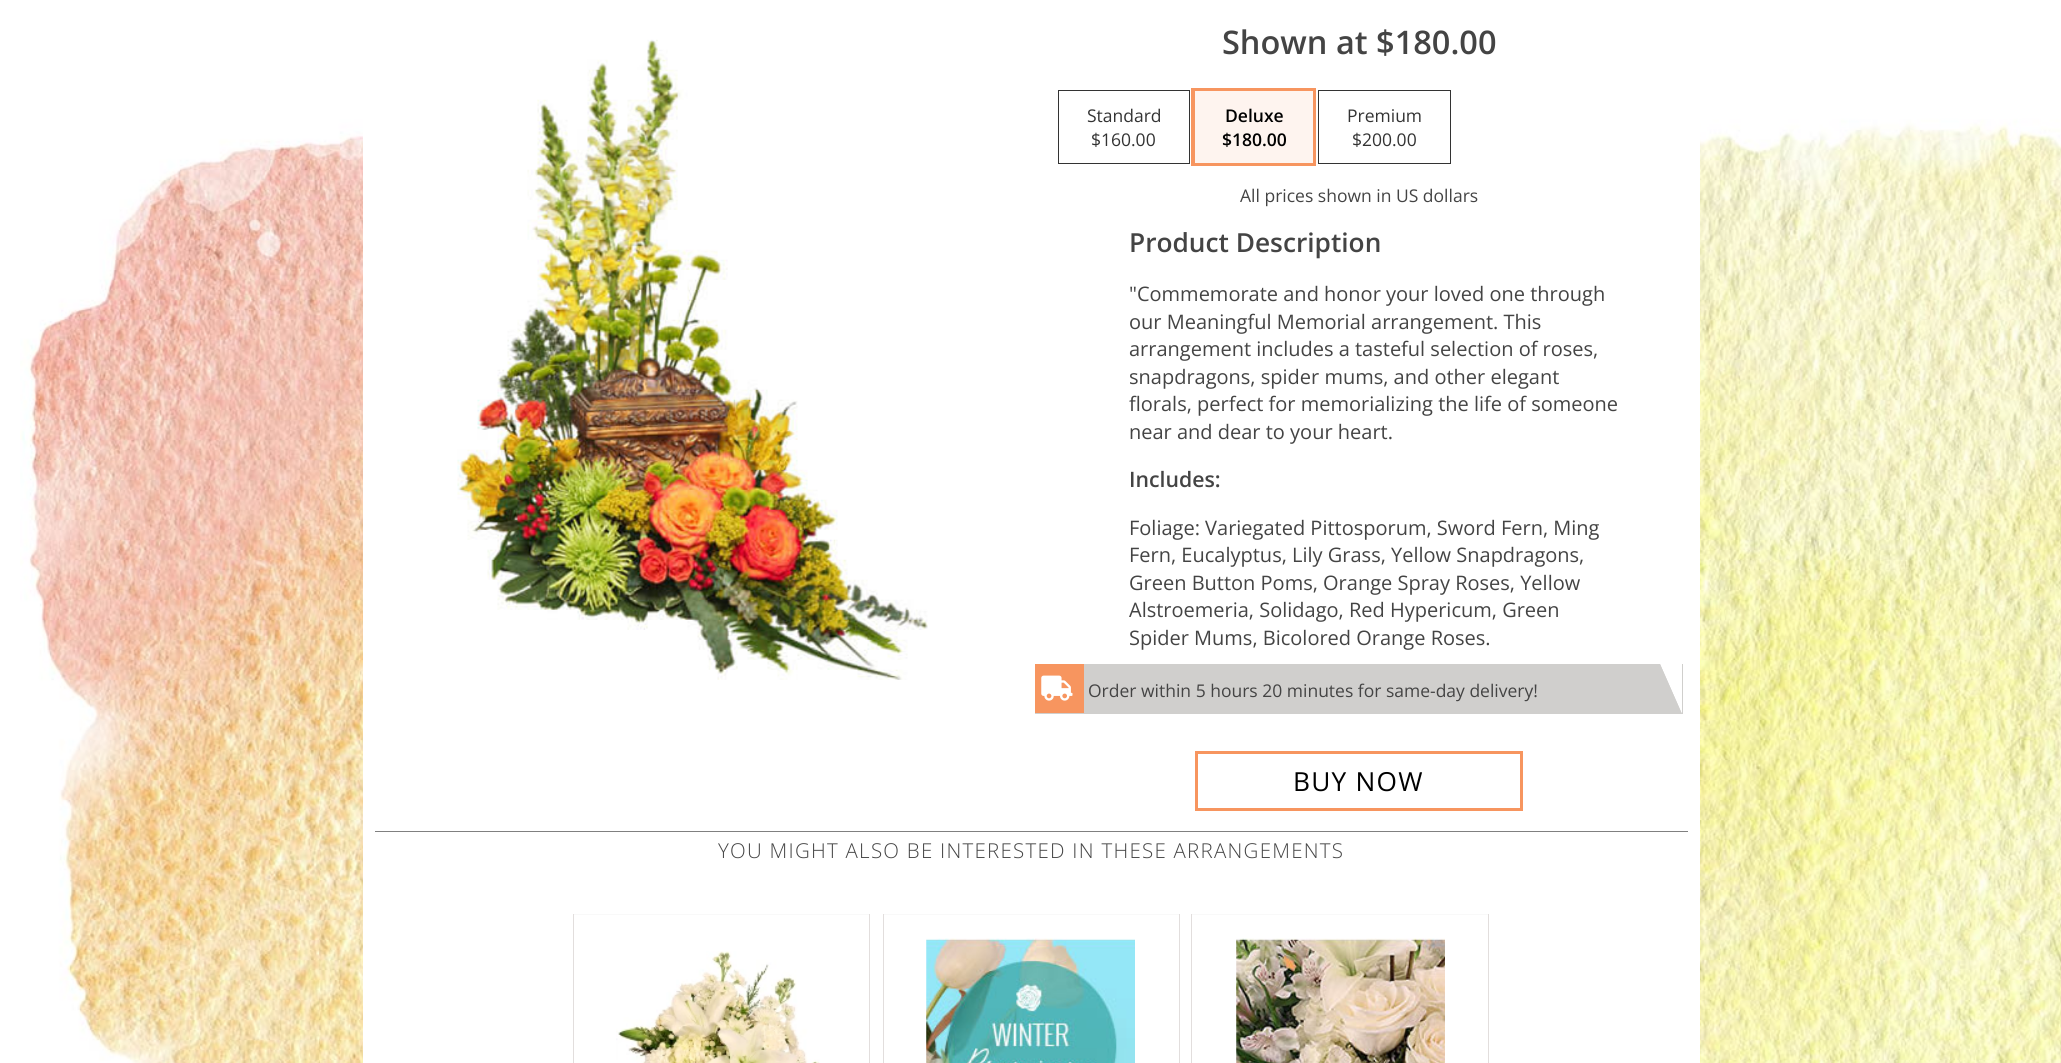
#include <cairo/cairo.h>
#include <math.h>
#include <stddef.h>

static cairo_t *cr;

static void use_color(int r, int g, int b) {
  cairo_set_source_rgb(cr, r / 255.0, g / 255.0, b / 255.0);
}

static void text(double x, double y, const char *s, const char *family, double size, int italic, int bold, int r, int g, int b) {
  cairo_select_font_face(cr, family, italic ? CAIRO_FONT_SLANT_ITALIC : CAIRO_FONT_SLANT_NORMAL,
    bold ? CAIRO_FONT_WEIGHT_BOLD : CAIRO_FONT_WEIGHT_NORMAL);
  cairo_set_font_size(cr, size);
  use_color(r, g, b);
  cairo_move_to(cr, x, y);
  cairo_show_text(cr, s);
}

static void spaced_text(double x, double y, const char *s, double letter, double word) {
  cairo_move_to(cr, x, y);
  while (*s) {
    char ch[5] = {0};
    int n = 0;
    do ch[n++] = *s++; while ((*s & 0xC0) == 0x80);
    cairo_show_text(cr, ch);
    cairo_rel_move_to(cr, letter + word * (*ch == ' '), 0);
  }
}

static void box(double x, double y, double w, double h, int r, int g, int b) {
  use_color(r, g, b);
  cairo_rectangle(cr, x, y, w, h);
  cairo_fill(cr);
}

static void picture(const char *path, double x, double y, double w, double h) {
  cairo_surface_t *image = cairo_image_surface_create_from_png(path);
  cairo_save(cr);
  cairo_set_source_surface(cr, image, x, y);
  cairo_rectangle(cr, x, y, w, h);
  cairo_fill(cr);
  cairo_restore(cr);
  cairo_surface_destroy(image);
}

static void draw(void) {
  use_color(255, 255, 255);
  cairo_paint(cr);
  picture("img_01.png", 20, 99, 2041, 964);
  box(363, 99, 1337, 964, 255, 255, 255);
  picture("img_02.png", 457, 39, 471, 641);
  cairo_rectangle(cr, 1058.5, 90.5, 131, 73);
  use_color(51, 51, 51);
  cairo_set_line_width(cr, 1);
  cairo_stroke(cr);
  cairo_rectangle(cr, 1193, 90, 121, 74);
  use_color(247, 149, 95);
  cairo_set_line_width(cr, 4);
  cairo_stroke(cr);
  box(1195, 91, 118, 72, 254, 244, 239);
  cairo_rectangle(cr, 1318.5, 90.5, 132, 73);
  use_color(51, 51, 51);
  cairo_set_line_width(cr, 1);
  cairo_stroke(cr);
  box(1660, 664, 23, 50, 208, 207, 205);
  use_color(255, 255, 255);
  cairo_new_path(cr);
  cairo_move_to(cr, 1682, 664);
  cairo_line_to(cr, 1682, 714);
  cairo_line_to(cr, 1660, 664);
  cairo_close_path(cr);
  cairo_fill(cr);
  use_color(208, 207, 205);
  cairo_new_path(cr);
  cairo_move_to(cr, 1682, 714);
  cairo_line_to(cr, 1035, 714);
  cairo_line_to(cr, 1035, 664);
  cairo_line_to(cr, 1660, 664);
  cairo_close_path(cr);
  cairo_fill(cr);
  box(1035, 664, 49, 49, 247, 149, 95);
  picture("img_03.png", 1041, 675, 32, 26);
  cairo_rectangle(cr, 1196.5, 752.5, 325, 57);
  cairo_set_line_width(cr, 3);
  cairo_stroke(cr);
  box(375, 831, 1313, 1, 128, 128, 128);
  box(573, 914, 297, 1, 249, 249, 249);
  box(869, 914, 1, 149, 226, 222, 221);
  box(573, 914, 1, 149, 226, 222, 221);
  picture("img_04.png", 616, 951, 204, 112);
  box(883, 914, 297, 1, 249, 249, 249);
  box(1179, 914, 1, 149, 226, 222, 221);
  box(883, 914, 1, 149, 226, 222, 221);
  picture("img_05.png", 926, 938, 209, 125);
  box(1191, 914, 298, 1, 249, 249, 249);
  box(1488, 914, 1, 149, 226, 222, 221);
  box(1191, 914, 1, 149, 226, 222, 221);
  picture("img_06.png", 1236, 938, 209, 125);
  text(1222, 54, "Shown at $180.00", "Open Sans SemiBold", 32.5, 0, 0, 68, 68, 68);
  text(1087, 122, "Standard", "Open Sans", 17.5, 0, 0, 51, 51, 51);
  text(1091, 146, "$160.00", "Open Sans", 17.5, 0, 0, 51, 51, 51);
  text(1225, 122, "Deluxe", "Open Sans SemiBold", 17.5, 0, 0, 0, 0, 0);
  text(1222, 146, "$180.00", "Open Sans SemiBold", 17.5, 0, 0, 0, 0, 0);
  text(1347, 122, "Premium", "Open Sans", 17.5, 0, 0, 51, 51, 51);
  text(1352, 146, "$200.00", "Open Sans", 17.5, 0, 0, 51, 51, 51);
  text(1240, 202, "All prices shown in US dollars", "Open Sans", 17.5, 0, 0, 68, 68, 68);
  text(1129, 252, "Product Description", "Open Sans SemiBold", 26.25, 0, 0, 68, 68, 68);
  text(1129, 301, "\"Commemorate and honor your loved one through", "Open Sans", 20, 0, 0, 68, 68, 68);
  text(1129, 329, "our Meaningful Memorial arrangement. This", "Open Sans", 20, 0, 0, 68, 68, 68);
  text(1129, 356, "arrangement includes a tasteful selection of roses,", "Open Sans", 20, 0, 0, 68, 68, 68);
  text(1129, 384, "snapdragons, spider mums, and other elegant", "Open Sans", 20, 0, 0, 68, 68, 68);
  text(1129, 411, "florals, perfect for memorializing the life of someone", "Open Sans", 20, 0, 0, 68, 68, 68);
  text(1129, 439, "near and dear to your heart.", "Open Sans", 20, 0, 0, 68, 68, 68);
  text(1129, 487, "Includes:", "Open Sans SemiBold", 21.25, 0, 0, 68, 68, 68);
  text(1129, 535, "Foliage: Variegated Pittosporum, Sword Fern, Ming", "Open Sans", 20, 0, 0, 68, 68, 68);
  text(1129, 562, "Fern, Eucalyptus, Lily Grass, Yellow Snapdragons,", "Open Sans", 20, 0, 0, 68, 68, 68);
  text(1129, 590, "Green Button Poms, Orange Spray Roses, Yellow", "Open Sans", 20, 0, 0, 68, 68, 68);
  text(1129, 617, "Alstroemeria, Solidago, Red Hypericum, Green", "Open Sans", 20, 0, 0, 68, 68, 68);
  text(1129, 645, "Spider Mums, Bicolored Orange Roses.", "Open Sans", 20, 0, 0, 68, 68, 68);
  text(1088, 697, "Order within 5 hours 20 minutes for same-day delivery!", "Open Sans", 17.5, 0, 0, 68, 68, 68);
  cairo_set_font_size(cr, 26.25);
  use_color(0, 0, 0);
  spaced_text(1293, 791, "BUY NOW", 1.25, 0);
  cairo_select_font_face(cr, "Open Sans Light", CAIRO_FONT_SLANT_NORMAL, CAIRO_FONT_WEIGHT_NORMAL);
  cairo_set_font_size(cr, 20.5);
  use_color(68, 68, 68);
  spaced_text(718, 858, "YOU MIGHT ALSO BE INTERESTED IN THESE ARRANGEMENTS", 1.25, 0);
}

int main(void) {
  cairo_surface_t *surface = cairo_image_surface_create(CAIRO_FORMAT_RGB24, 2061, 1063);
  cr = cairo_create(surface);
  cairo_font_options_t *options = cairo_font_options_create();
  cairo_font_options_set_hint_metrics(options, CAIRO_HINT_METRICS_OFF);
  cairo_font_options_set_hint_style(options, CAIRO_HINT_STYLE_NONE);
  cairo_set_font_options(cr, options);
  cairo_set_miter_limit(cr, 4);
  draw();
  cairo_surface_write_to_png(surface, "out.png");
  cairo_font_options_destroy(options);
  cairo_destroy(cr);
  cairo_surface_destroy(surface);
  return 0;
}
